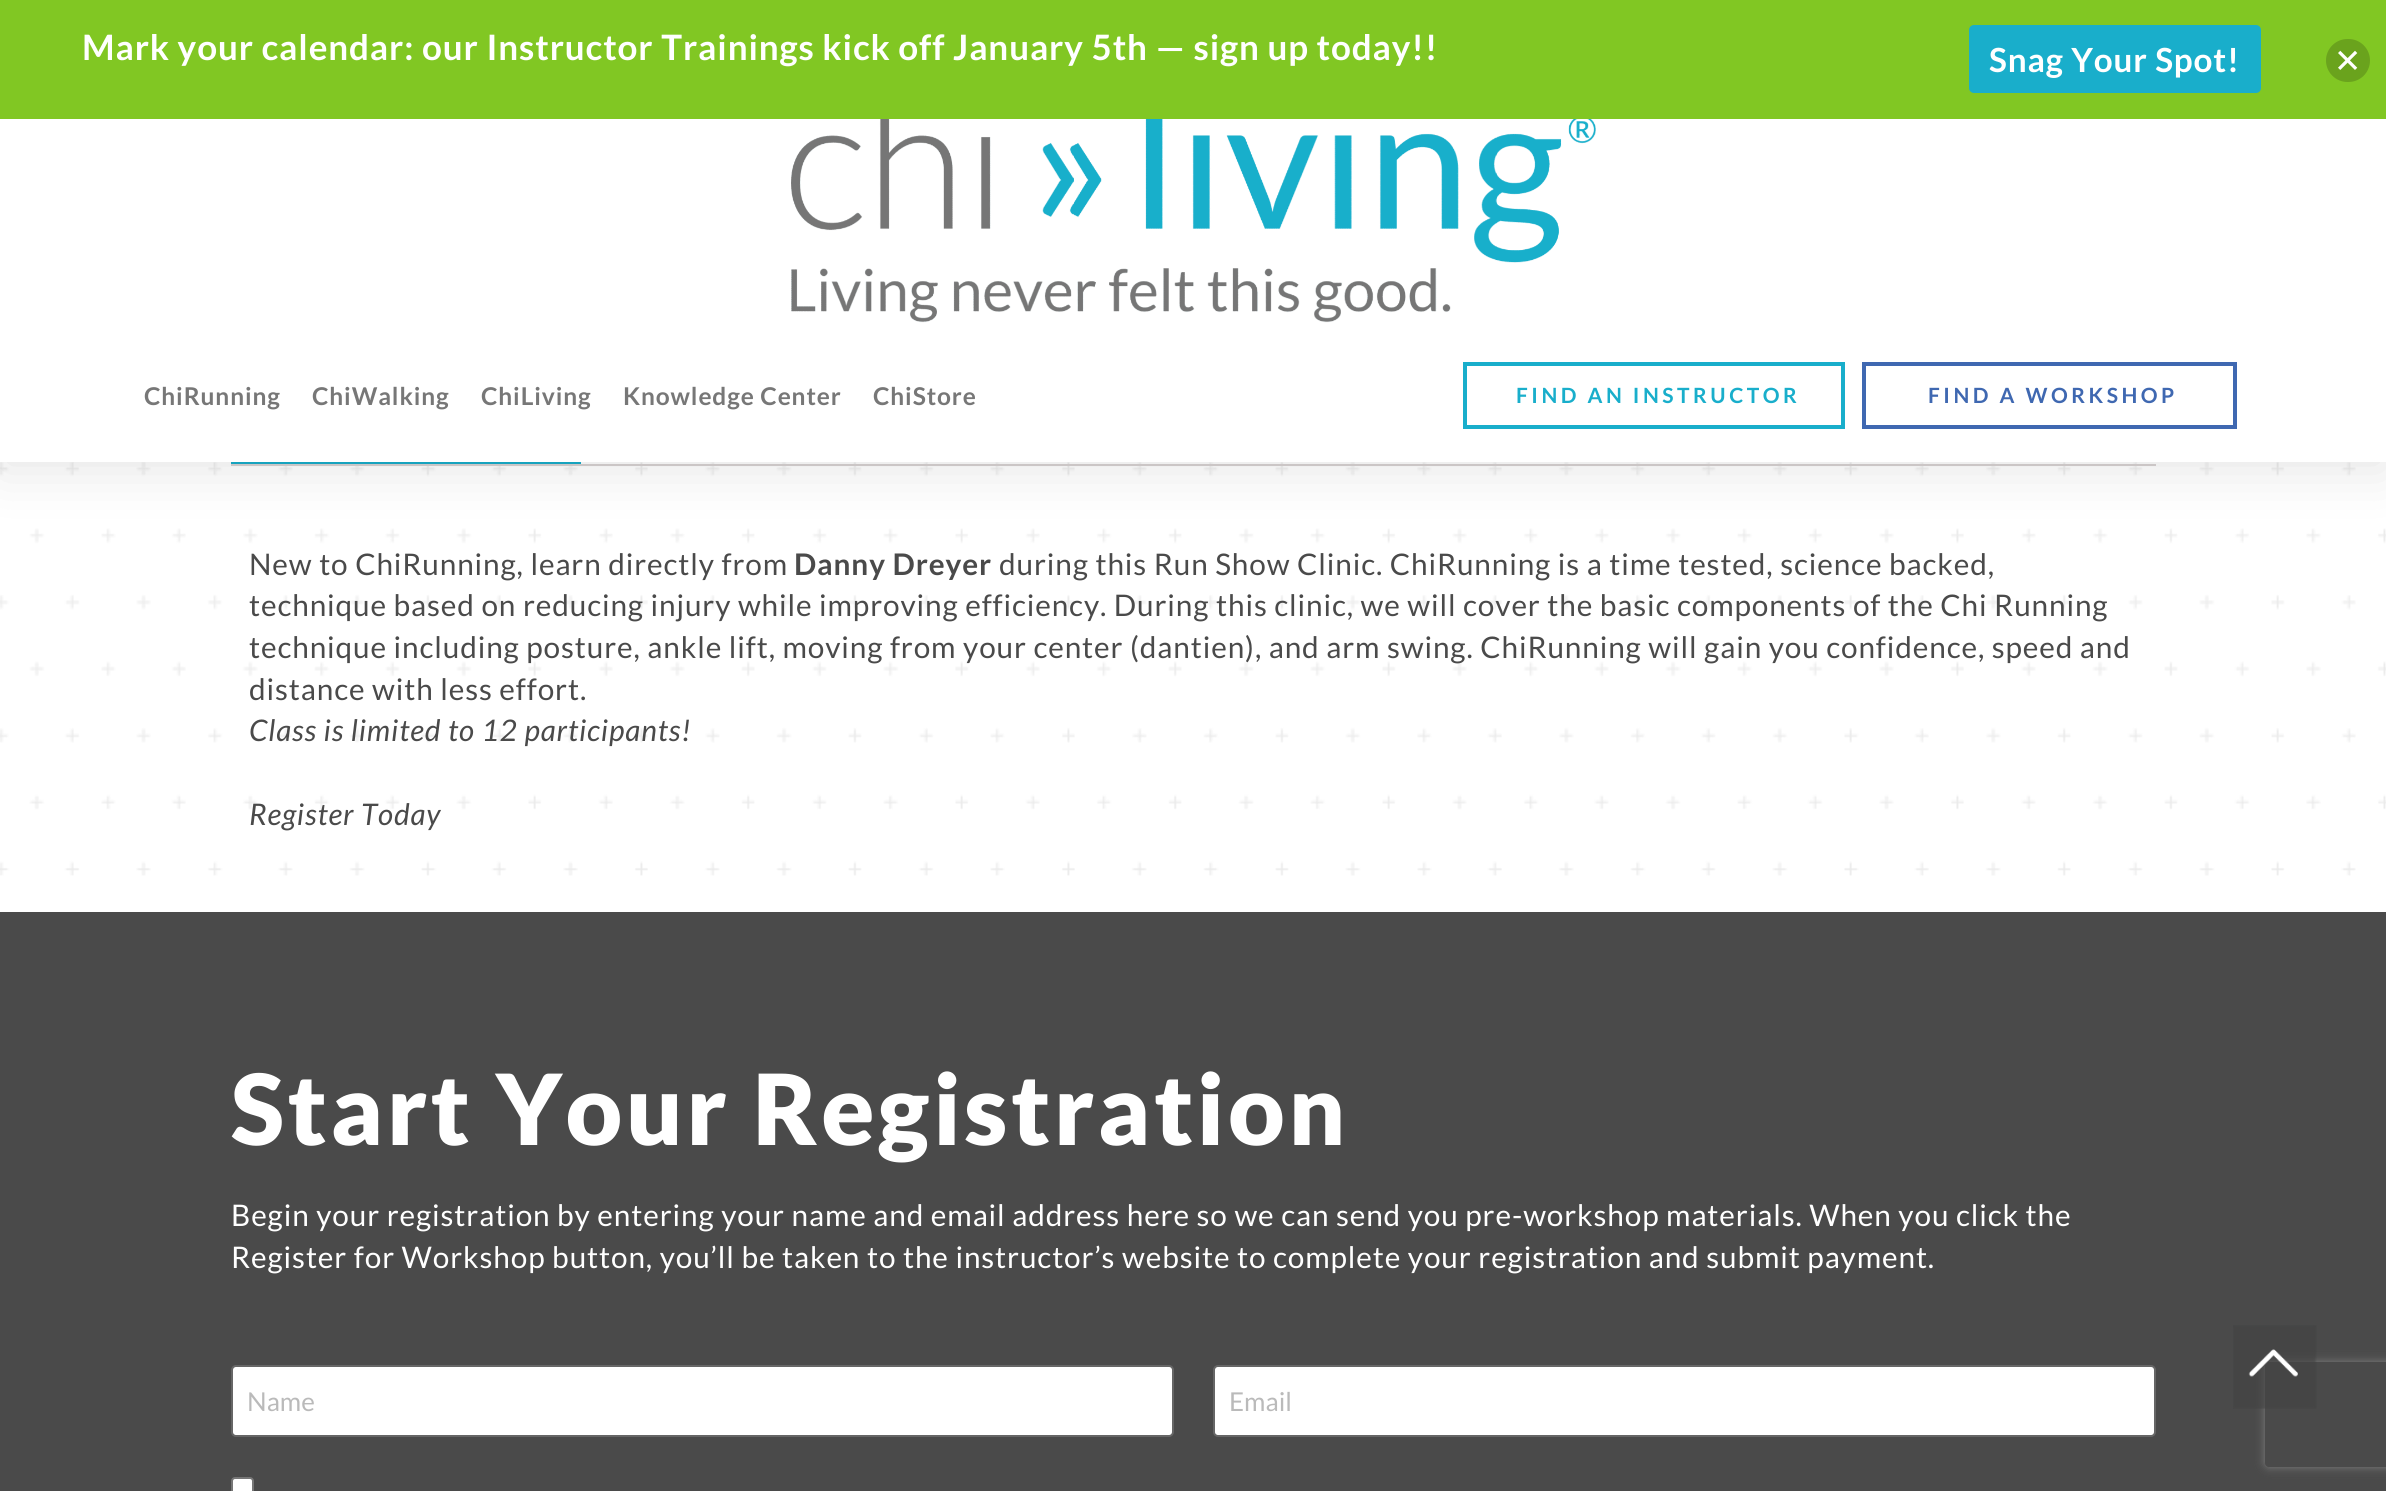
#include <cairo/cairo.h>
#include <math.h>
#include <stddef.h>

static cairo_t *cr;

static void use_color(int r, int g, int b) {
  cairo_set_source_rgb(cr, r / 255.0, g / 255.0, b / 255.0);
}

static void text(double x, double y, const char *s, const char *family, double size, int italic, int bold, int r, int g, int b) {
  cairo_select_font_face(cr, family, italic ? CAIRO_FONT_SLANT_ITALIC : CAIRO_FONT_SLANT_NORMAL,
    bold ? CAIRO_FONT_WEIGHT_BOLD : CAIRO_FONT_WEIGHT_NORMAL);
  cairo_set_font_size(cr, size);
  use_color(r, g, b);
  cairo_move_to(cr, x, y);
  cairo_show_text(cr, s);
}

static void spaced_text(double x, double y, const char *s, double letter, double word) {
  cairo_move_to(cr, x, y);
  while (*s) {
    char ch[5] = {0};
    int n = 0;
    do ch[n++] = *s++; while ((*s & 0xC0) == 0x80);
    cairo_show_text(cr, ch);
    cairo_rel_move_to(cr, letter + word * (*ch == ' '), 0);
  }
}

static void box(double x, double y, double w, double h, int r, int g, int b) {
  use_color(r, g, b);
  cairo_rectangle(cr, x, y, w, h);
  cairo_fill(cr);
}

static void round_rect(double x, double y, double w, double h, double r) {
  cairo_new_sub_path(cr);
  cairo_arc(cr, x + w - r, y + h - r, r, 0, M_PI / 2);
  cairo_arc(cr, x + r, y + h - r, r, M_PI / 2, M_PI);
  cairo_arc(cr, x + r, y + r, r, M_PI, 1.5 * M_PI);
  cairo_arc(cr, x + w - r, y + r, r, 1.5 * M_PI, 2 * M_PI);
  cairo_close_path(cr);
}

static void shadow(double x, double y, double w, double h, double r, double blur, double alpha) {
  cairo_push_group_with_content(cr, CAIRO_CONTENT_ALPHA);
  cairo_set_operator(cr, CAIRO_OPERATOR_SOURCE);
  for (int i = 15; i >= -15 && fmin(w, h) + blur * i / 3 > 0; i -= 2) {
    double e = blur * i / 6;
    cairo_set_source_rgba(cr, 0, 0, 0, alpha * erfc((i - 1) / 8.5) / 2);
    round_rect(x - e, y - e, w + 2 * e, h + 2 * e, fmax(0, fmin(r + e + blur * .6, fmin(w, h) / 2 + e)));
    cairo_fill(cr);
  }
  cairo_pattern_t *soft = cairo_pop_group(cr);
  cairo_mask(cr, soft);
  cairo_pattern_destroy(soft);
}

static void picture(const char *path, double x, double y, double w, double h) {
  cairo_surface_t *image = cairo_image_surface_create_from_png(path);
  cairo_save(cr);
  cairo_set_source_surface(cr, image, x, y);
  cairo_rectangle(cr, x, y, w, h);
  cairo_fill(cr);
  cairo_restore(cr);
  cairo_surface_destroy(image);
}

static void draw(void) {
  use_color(255, 255, 255);
  cairo_paint(cr);
  picture("img_01.png", 0, 462, 2386, 414);
  box(231, 464, 1925, 2, 217, 211, 211);
  box(231, 462, 350, 2, 25, 174, 203);
  use_color(0, 0, 0);
  shadow(0, 9, 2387, 462, 0, 26, 0.1);
  box(0, 0, 2386, 119, 129, 199, 35);
  use_color(25, 174, 203);
  round_rect(1969, 25, 292, 68, 5);
  cairo_fill(cr);
  use_color(106, 163, 29);
  round_rect(2326, 39, 44, 43, 21.5);
  cairo_fill(cr);
  picture("img_02.png", 2338, 50, 20, 20);
  box(0, 119, 2386, 343, 255, 255, 255);
  picture("img_03.png", 791, 119, 805, 204);
  cairo_rectangle(cr, 1465, 364, 378, 63);
  use_color(25, 174, 203);
  cairo_set_line_width(cr, 4);
  cairo_stroke(cr);
  cairo_rectangle(cr, 1864, 364, 371, 63);
  use_color(63, 104, 177);
  cairo_stroke(cr);
  box(0, 912, 2386, 579, 74, 74, 74);
  use_color(255, 255, 255);
  round_rect(232, 1366, 941, 70, 4);
  cairo_fill_preserve(cr);
  use_color(102, 102, 102);
  cairo_set_line_width(cr, 2);
  cairo_stroke(cr);
  use_color(255, 255, 255);
  round_rect(1214, 1366, 941, 70, 4);
  cairo_fill_preserve(cr);
  use_color(102, 102, 102);
  cairo_stroke(cr);
  use_color(255, 255, 255);
  round_rect(232, 1478, 21, 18, 3);
  cairo_fill_preserve(cr);
  use_color(118, 118, 118);
  cairo_stroke(cr);
  cairo_save(cr);
  cairo_set_fill_rule(cr, CAIRO_FILL_RULE_EVEN_ODD);
  cairo_new_path(cr);
  cairo_move_to(cr, 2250, 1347);
  cairo_line_to(cr, 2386, 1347);
  cairo_line_to(cr, 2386, 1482);
  cairo_line_to(cr, 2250, 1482);
  cairo_close_path(cr);
  cairo_move_to(cr, 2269, 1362);
  cairo_line_to(cr, 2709, 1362);
  cairo_curve_to(cr, 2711, 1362, 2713, 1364, 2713, 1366);
  cairo_line_to(cr, 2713, 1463);
  cairo_curve_to(cr, 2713, 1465, 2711, 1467, 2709, 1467);
  cairo_line_to(cr, 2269, 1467);
  cairo_curve_to(cr, 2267, 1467, 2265, 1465, 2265, 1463);
  cairo_line_to(cr, 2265, 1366);
  cairo_curve_to(cr, 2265, 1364, 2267, 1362, 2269, 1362);
  cairo_close_path(cr);
  cairo_clip(cr);
  use_color(128, 128, 128);
  shadow(2265, 1362, 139, 105, 4, 4.5, 1);
  cairo_restore(cr);
  picture("img_04.png", 2233, 1325, 84, 84);
  cairo_select_font_face(cr, "Lato", CAIRO_FONT_SLANT_NORMAL, CAIRO_FONT_WEIGHT_BOLD);
  cairo_set_font_size(cr, 35);
  use_color(255, 255, 255);
  spaced_text(82, 60, "Mark your calendar: our Instructor Trainings kick off January 5th — sign up today!!", 0.88, 0);
  cairo_set_font_size(cr, 33.25);
  spaced_text(1989, 72, "Snag Your Spot!", 0.88, 0);
  cairo_set_font_size(cr, 24.5);
  use_color(119, 119, 119);
  spaced_text(144, 405, "ChiRunning", 0.88, 0);
  spaced_text(312, 405, "ChiWalking", 0.88, 0);
  spaced_text(481, 405, "ChiLiving", 0.88, 0);
  spaced_text(623, 405, "Knowledge Center", 0.88, 0);
  spaced_text(873, 405, "ChiStore", 0.88, 0);
  cairo_set_font_size(cr, 21);
  use_color(25, 174, 203);
  spaced_text(1516, 403, "FIND AN INSTRUCTOR", 3.5, 0);
  use_color(63, 104, 177);
  spaced_text(1928, 403, "FIND A WORKSHOP", 3.5, 0);
  cairo_select_font_face(cr, "Lato", CAIRO_FONT_SLANT_NORMAL, CAIRO_FONT_WEIGHT_NORMAL);
  cairo_set_font_size(cr, 29.75);
  use_color(74, 74, 74);
  spaced_text(249, 575, "New to ChiRunning, learn directly from", 0.88, 0);
  cairo_select_font_face(cr, "Lato", CAIRO_FONT_SLANT_NORMAL, CAIRO_FONT_WEIGHT_BOLD);
  spaced_text(794, 575, "Danny Dreyer", 0.88, 0);
  cairo_select_font_face(cr, "Lato", CAIRO_FONT_SLANT_NORMAL, CAIRO_FONT_WEIGHT_NORMAL);
  spaced_text(999, 575, "during this Run Show Clinic. ChiRunning is a time tested, science backed,", 0.88, 0);
  spaced_text(249, 616, "technique based on reducing injury while improving efficiency. During this clinic, we will cover the basic components of the Chi Running", 0.88, 0);
  spaced_text(249, 658, "technique including posture, ankle lift, moving from your center (dantien), and arm swing. ChiRunning will gain you confidence, speed and", 0.88, 0);
  spaced_text(249, 700, "distance with less effort.", 0.88, 0);
  cairo_select_font_face(cr, "Lato", CAIRO_FONT_SLANT_ITALIC, CAIRO_FONT_WEIGHT_NORMAL);
  spaced_text(249, 741, "Class is limited to 12 participants!", 0.88, 0);
  spaced_text(249, 825, "Register Today", 0.88, 0);
  cairo_select_font_face(cr, "Lato Black", CAIRO_FONT_SLANT_NORMAL, CAIRO_FONT_WEIGHT_NORMAL);
  cairo_set_font_size(cr, 98);
  use_color(255, 255, 255);
  spaced_text(231, 1145, "Start Your Registration", 3.5, 0);
  cairo_select_font_face(cr, "Lato", CAIRO_FONT_SLANT_NORMAL, CAIRO_FONT_WEIGHT_NORMAL);
  cairo_set_font_size(cr, 29.75);
  spaced_text(231, 1226, "Begin your registration by entering your name and email address here so we can send you pre-workshop materials. When you click the", 0.88, 0);
  spaced_text(231, 1268, "Register for Workshop button, you’ll be taken to the instructor’s website to complete your registration and submit payment.", 0.88, 0);
  text(247, 1411, "Name", "Lato", 26, 0, 0, 186, 186, 186);
  text(1229, 1411, "Email", "Lato", 26, 0, 0, 186, 186, 186);
}

int main(void) {
  cairo_surface_t *surface = cairo_image_surface_create(CAIRO_FORMAT_RGB24, 2386, 1491);
  cr = cairo_create(surface);
  cairo_font_options_t *options = cairo_font_options_create();
  cairo_font_options_set_hint_metrics(options, CAIRO_HINT_METRICS_OFF);
  cairo_font_options_set_hint_style(options, CAIRO_HINT_STYLE_NONE);
  cairo_set_font_options(cr, options);
  cairo_set_miter_limit(cr, 4);
  draw();
  cairo_surface_write_to_png(surface, "out.png");
  cairo_font_options_destroy(options);
  cairo_destroy(cr);
  cairo_surface_destroy(surface);
  return 0;
}
